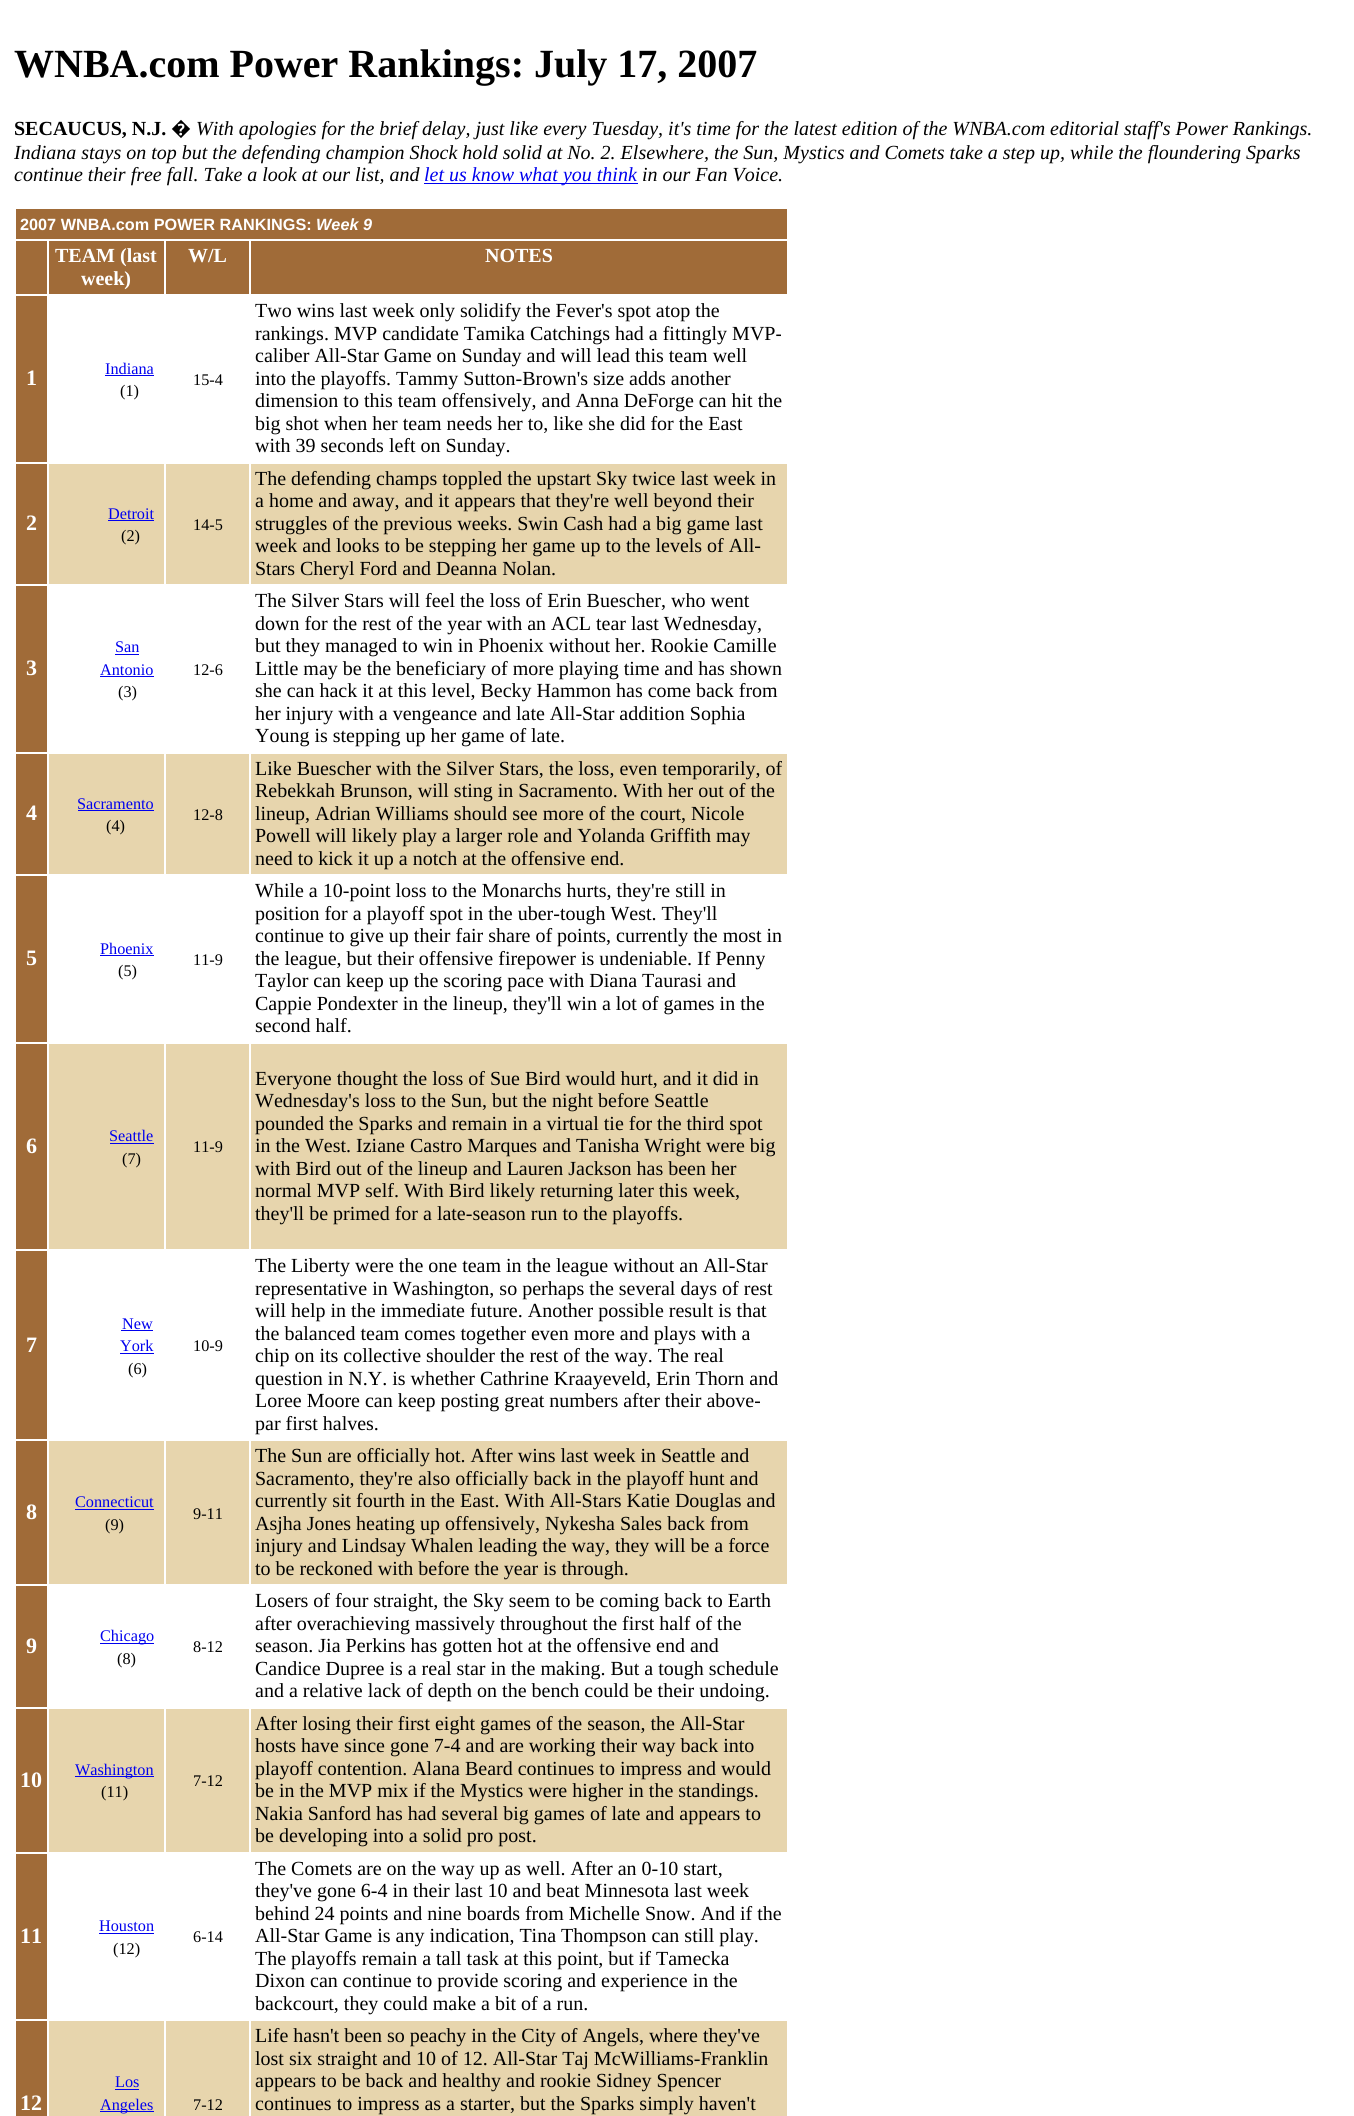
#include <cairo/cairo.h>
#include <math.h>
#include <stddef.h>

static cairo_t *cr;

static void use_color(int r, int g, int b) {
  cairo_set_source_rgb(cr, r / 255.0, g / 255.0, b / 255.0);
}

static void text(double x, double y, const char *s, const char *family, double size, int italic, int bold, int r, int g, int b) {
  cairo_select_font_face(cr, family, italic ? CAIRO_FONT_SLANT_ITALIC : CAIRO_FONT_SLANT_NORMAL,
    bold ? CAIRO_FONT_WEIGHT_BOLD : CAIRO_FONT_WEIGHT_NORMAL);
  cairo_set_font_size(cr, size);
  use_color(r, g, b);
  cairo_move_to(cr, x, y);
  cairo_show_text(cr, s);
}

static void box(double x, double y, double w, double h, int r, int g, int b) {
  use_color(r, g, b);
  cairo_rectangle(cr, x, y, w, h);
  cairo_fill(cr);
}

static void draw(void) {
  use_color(255, 255, 255);
  cairo_paint(cr);
  box(424, 183, 214, 1, 0, 0, 238);
  box(16, 209, 771, 30, 160, 107, 56);
  box(16, 241, 31, 53, 160, 107, 56);
  box(49, 241, 115, 53, 160, 107, 56);
  box(166, 241, 83, 53, 160, 107, 56);
  box(251, 241, 536, 53, 160, 107, 56);
  box(16, 296, 31, 166, 160, 107, 56);
  box(105, 375, 49, 1, 0, 0, 238);
  box(16, 464, 31, 120, 160, 107, 56);
  box(49, 464, 115, 120, 231, 213, 173);
  box(108, 520, 46, 1, 0, 0, 238);
  box(166, 464, 83, 120, 231, 213, 173);
  box(251, 464, 536, 120, 231, 213, 173);
  box(16, 586, 31, 166, 160, 107, 56);
  box(115, 654, 24, 1, 0, 0, 238);
  box(100, 676, 54, 1, 0, 0, 238);
  box(16, 754, 31, 120, 160, 107, 56);
  box(49, 754, 115, 120, 231, 213, 173);
  box(78, 810, 76, 1, 0, 0, 238);
  box(166, 754, 83, 120, 231, 213, 173);
  box(251, 754, 536, 120, 231, 213, 173);
  box(16, 876, 31, 166, 160, 107, 56);
  box(100, 955, 54, 1, 0, 0, 238);
  box(16, 1044, 31, 205, 160, 107, 56);
  box(49, 1044, 115, 205, 231, 213, 173);
  box(110, 1143, 44, 1, 0, 0, 238);
  box(166, 1044, 83, 205, 231, 213, 173);
  box(251, 1044, 536, 205, 231, 213, 173);
  box(16, 1251, 31, 188, 160, 107, 56);
  box(121, 1330, 32, 1, 0, 0, 238);
  box(120, 1353, 34, 1, 0, 0, 238);
  box(16, 1441, 31, 143, 160, 107, 56);
  box(49, 1441, 115, 143, 231, 213, 173);
  box(75, 1509, 79, 1, 0, 0, 238);
  box(166, 1441, 83, 143, 231, 213, 173);
  box(251, 1441, 536, 143, 231, 213, 173);
  box(16, 1586, 31, 121, 160, 107, 56);
  box(100, 1643, 54, 1, 0, 0, 238);
  box(16, 1709, 31, 143, 160, 107, 56);
  box(49, 1709, 115, 143, 231, 213, 173);
  box(75, 1776, 79, 1, 0, 0, 238);
  box(166, 1709, 83, 143, 231, 213, 173);
  box(251, 1709, 536, 143, 231, 213, 173);
  box(16, 1854, 31, 165, 160, 107, 56);
  box(99, 1933, 55, 1, 0, 0, 238);
  box(16, 2021, 31, 95, 160, 107, 56);
  box(49, 2021, 115, 95, 231, 213, 173);
  box(115, 2089, 24, 1, 0, 0, 238);
  box(100, 2111, 54, 1, 0, 0, 238);
  box(166, 2021, 83, 95, 231, 213, 173);
  box(251, 2021, 536, 95, 231, 213, 173);
  text(14, 77, "WNBA.com Power Rankings: July 17, 2007", "Liberation Serif", 40, 0, 1, 0, 0, 0);
  text(14, 135, "SECAUCUS, N.J.", "Liberation Serif", 20, 0, 1, 0, 0, 0);
  text(171, 135, "�", "Noto Sans", 20, 0, 1, 0, 0, 0);
  text(196, 135, "With apologies for the brief delay, just like every Tuesday, it's time for the latest edition of the WNBA.com editorial staff's Power Rankings.", "Liberation Serif", 20, 1, 0, 0, 0, 0);
  text(14, 159, "Indiana stays on top but the defending champion Shock hold solid at No. 2. Elsewhere, the Sun, Mystics and Comets take a step up, while the floundering Sparks", "Liberation Serif", 20, 1, 0, 0, 0, 0);
  text(14, 181, "continue their free fall. Take a look at our list, and", "Liberation Serif", 20, 1, 0, 0, 0, 0);
  text(424, 181, "let us know what you think", "Liberation Serif", 20, 1, 0, 0, 0, 238);
  text(642, 181, "in our Fan Voice.", "Liberation Serif", 20, 1, 0, 0, 0, 0);
  text(20, 230, "2007 WNBA.com POWER RANKINGS:", "Liberation Sans", 16.25, 0, 1, 255, 255, 255);
  text(316, 230, "Week 9", "Liberation Sans", 16.25, 1, 1, 255, 255, 255);
  text(55, 262, "TEAM (last", "Liberation Serif", 20, 0, 1, 255, 255, 255);
  text(81, 285, "week)", "Liberation Serif", 20, 0, 1, 255, 255, 255);
  text(188, 262, "W/L", "Liberation Serif", 20, 0, 1, 255, 255, 255);
  text(485, 262, "NOTES", "Liberation Serif", 20, 0, 1, 255, 255, 255);
  text(26, 385, "1", "Liberation Serif", 22, 0, 1, 255, 255, 255);
  text(105, 374, "Indiana", "Liberation Serif", 16.25, 0, 0, 0, 0, 238);
  text(120, 396, "(1)", "Liberation Serif", 16.25, 0, 0, 0, 0, 0);
  text(193, 385, "15-4", "Liberation Serif", 16.25, 0, 0, 0, 0, 0);
  text(255, 317, "Two wins last week only solidify the Fever's spot atop the", "Liberation Serif", 20, 0, 0, 0, 0, 0);
  text(255, 340, "rankings. MVP candidate Tamika Catchings had a fittingly MVP-", "Liberation Serif", 20, 0, 0, 0, 0, 0);
  text(255, 362, "caliber All-Star Game on Sunday and will lead this team well", "Liberation Serif", 20, 0, 0, 0, 0, 0);
  text(255, 385, "into the playoffs. Tammy Sutton-Brown's size adds another", "Liberation Serif", 20, 0, 0, 0, 0, 0);
  text(255, 407, "dimension to this team offensively, and Anna DeForge can hit the", "Liberation Serif", 20, 0, 0, 0, 0, 0);
  text(255, 430, "big shot when her team needs her to, like she did for the East", "Liberation Serif", 20, 0, 0, 0, 0, 0);
  text(255, 452, "with 39 seconds left on Sunday.", "Liberation Serif", 20, 0, 0, 0, 0, 0);
  text(26, 530, "2", "Liberation Serif", 22, 0, 1, 255, 255, 255);
  text(108, 519, "Detroit", "Liberation Serif", 16.25, 0, 0, 0, 0, 238);
  text(121, 541, "(2)", "Liberation Serif", 16.25, 0, 0, 0, 0, 0);
  text(193, 530, "14-5", "Liberation Serif", 16.25, 0, 0, 0, 0, 0);
  text(255, 485, "The defending champs toppled the upstart Sky twice last week in", "Liberation Serif", 20, 0, 0, 0, 0, 0);
  text(255, 507, "a home and away, and it appears that they're well beyond their", "Liberation Serif", 20, 0, 0, 0, 0, 0);
  text(255, 530, "struggles of the previous weeks. Swin Cash had a big game last", "Liberation Serif", 20, 0, 0, 0, 0, 0);
  text(255, 552, "week and looks to be stepping her game up to the levels of All-", "Liberation Serif", 20, 0, 0, 0, 0, 0);
  text(255, 575, "Stars Cheryl Ford and Deanna Nolan.", "Liberation Serif", 20, 0, 0, 0, 0, 0);
  text(26, 675, "3", "Liberation Serif", 22, 0, 1, 255, 255, 255);
  text(115, 652, "San", "Liberation Serif", 16.25, 0, 0, 0, 0, 238);
  text(100, 675, "Antonio", "Liberation Serif", 16.25, 0, 0, 0, 0, 238);
  text(118, 697, "(3)", "Liberation Serif", 16.25, 0, 0, 0, 0, 0);
  text(193, 675, "12-6", "Liberation Serif", 16.25, 0, 0, 0, 0, 0);
  text(255, 607, "The Silver Stars will feel the loss of Erin Buescher, who went", "Liberation Serif", 20, 0, 0, 0, 0, 0);
  text(255, 630, "down for the rest of the year with an ACL tear last Wednesday,", "Liberation Serif", 20, 0, 0, 0, 0, 0);
  text(255, 652, "but they managed to win in Phoenix without her. Rookie Camille", "Liberation Serif", 20, 0, 0, 0, 0, 0);
  text(255, 675, "Little may be the beneficiary of more playing time and has shown", "Liberation Serif", 20, 0, 0, 0, 0, 0);
  text(255, 697, "she can hack it at this level, Becky Hammon has come back from", "Liberation Serif", 20, 0, 0, 0, 0, 0);
  text(255, 720, "her injury with a vengeance and late All-Star addition Sophia", "Liberation Serif", 20, 0, 0, 0, 0, 0);
  text(255, 742, "Young is stepping up her game of late.", "Liberation Serif", 20, 0, 0, 0, 0, 0);
  text(26, 820, "4", "Liberation Serif", 22, 0, 1, 255, 255, 255);
  text(77, 809, "Sacramento", "Liberation Serif", 16.25, 0, 0, 0, 0, 238);
  text(106, 831, "(4)", "Liberation Serif", 16.25, 0, 0, 0, 0, 0);
  text(193, 820, "12-8", "Liberation Serif", 16.25, 0, 0, 0, 0, 0);
  text(255, 775, "Like Buescher with the Silver Stars, the loss, even temporarily, of", "Liberation Serif", 20, 0, 0, 0, 0, 0);
  text(255, 797, "Rebekkah Brunson, will sting in Sacramento. With her out of the", "Liberation Serif", 20, 0, 0, 0, 0, 0);
  text(255, 820, "lineup, Adrian Williams should see more of the court, Nicole", "Liberation Serif", 20, 0, 0, 0, 0, 0);
  text(255, 842, "Powell will likely play a larger role and Yolanda Griffith may", "Liberation Serif", 20, 0, 0, 0, 0, 0);
  text(255, 865, "need to kick it up a notch at the offensive end.", "Liberation Serif", 20, 0, 0, 0, 0, 0);
  text(26, 965, "5", "Liberation Serif", 22, 0, 1, 255, 255, 255);
  text(100, 954, "Phoenix", "Liberation Serif", 16.25, 0, 0, 0, 0, 238);
  text(118, 976, "(5)", "Liberation Serif", 16.25, 0, 0, 0, 0, 0);
  text(193, 965, "11-9", "Liberation Serif", 16.25, 0, 0, 0, 0, 0);
  text(255, 897, "While a 10-point loss to the Monarchs hurts, they're still in", "Liberation Serif", 20, 0, 0, 0, 0, 0);
  text(255, 920, "position for a playoff spot in the uber-tough West. They'll", "Liberation Serif", 20, 0, 0, 0, 0, 0);
  text(255, 942, "continue to give up their fair share of points, currently the most in", "Liberation Serif", 20, 0, 0, 0, 0, 0);
  text(255, 965, "the league, but their offensive firepower is undeniable. If Penny", "Liberation Serif", 20, 0, 0, 0, 0, 0);
  text(255, 987, "Taylor can keep up the scoring pace with Diana Taurasi and", "Liberation Serif", 20, 0, 0, 0, 0, 0);
  text(255, 1010, "Cappie Pondexter in the lineup, they'll win a lot of games in the", "Liberation Serif", 20, 0, 0, 0, 0, 0);
  text(255, 1032, "second half.", "Liberation Serif", 20, 0, 0, 0, 0, 0);
  text(26, 1153, "6", "Liberation Serif", 22, 0, 1, 255, 255, 255);
  text(109, 1141, "Seattle", "Liberation Serif", 16.25, 0, 0, 0, 0, 238);
  text(122, 1164, "(7)", "Liberation Serif", 16.25, 0, 0, 0, 0, 0);
  text(193, 1152, "11-9", "Liberation Serif", 16.25, 0, 0, 0, 0, 0);
  text(255, 1085, "Everyone thought the loss of Sue Bird would hurt, and it did in", "Liberation Serif", 20, 0, 0, 0, 0, 0);
  text(255, 1107, "Wednesday's loss to the Sun, but the night before Seattle", "Liberation Serif", 20, 0, 0, 0, 0, 0);
  text(255, 1130, "pounded the Sparks and remain in a virtual tie for the third spot", "Liberation Serif", 20, 0, 0, 0, 0, 0);
  text(255, 1152, "in the West. Iziane Castro Marques and Tanisha Wright were big", "Liberation Serif", 20, 0, 0, 0, 0, 0);
  text(255, 1175, "with Bird out of the lineup and Lauren Jackson has been her", "Liberation Serif", 20, 0, 0, 0, 0, 0);
  text(255, 1197, "normal MVP self. With Bird likely returning later this week,", "Liberation Serif", 20, 0, 0, 0, 0, 0);
  text(255, 1220, "they'll be primed for a late-season run to the playoffs.", "Liberation Serif", 20, 0, 0, 0, 0, 0);
  text(26, 1352, "7", "Liberation Serif", 22, 0, 1, 255, 255, 255);
  text(122, 1329, "New", "Liberation Serif", 16.25, 0, 0, 0, 0, 238);
  text(120, 1351, "York", "Liberation Serif", 16.25, 0, 0, 0, 0, 238);
  text(128, 1374, "(6)", "Liberation Serif", 16.25, 0, 0, 0, 0, 0);
  text(193, 1351, "10-9", "Liberation Serif", 16.25, 0, 0, 0, 0, 0);
  text(255, 1272, "The Liberty were the one team in the league without an All-Star", "Liberation Serif", 20, 0, 0, 0, 0, 0);
  text(255, 1295, "representative in Washington, so perhaps the several days of rest", "Liberation Serif", 20, 0, 0, 0, 0, 0);
  text(255, 1317, "will help in the immediate future. Another possible result is that", "Liberation Serif", 20, 0, 0, 0, 0, 0);
  text(255, 1340, "the balanced team comes together even more and plays with a", "Liberation Serif", 20, 0, 0, 0, 0, 0);
  text(255, 1362, "chip on its collective shoulder the rest of the way. The real", "Liberation Serif", 20, 0, 0, 0, 0, 0);
  text(255, 1385, "question in N.Y. is whether Cathrine Kraayeveld, Erin Thorn and", "Liberation Serif", 20, 0, 0, 0, 0, 0);
  text(255, 1407, "Loree Moore can keep posting great numbers after their above-", "Liberation Serif", 20, 0, 0, 0, 0, 0);
  text(255, 1430, "par first halves.", "Liberation Serif", 20, 0, 0, 0, 0, 0);
  text(26, 1519, "8", "Liberation Serif", 22, 0, 1, 255, 255, 255);
  text(75, 1507, "Connecticut", "Liberation Serif", 16.25, 0, 0, 0, 0, 238);
  text(105, 1530, "(9)", "Liberation Serif", 16.25, 0, 0, 0, 0, 0);
  text(193, 1519, "9-11", "Liberation Serif", 16.25, 0, 0, 0, 0, 0);
  text(255, 1462, "The Sun are officially hot. After wins last week in Seattle and", "Liberation Serif", 20, 0, 0, 0, 0, 0);
  text(255, 1485, "Sacramento, they're also officially back in the playoff hunt and", "Liberation Serif", 20, 0, 0, 0, 0, 0);
  text(255, 1507, "currently sit fourth in the East. With All-Stars Katie Douglas and", "Liberation Serif", 20, 0, 0, 0, 0, 0);
  text(255, 1530, "Asjha Jones heating up offensively, Nykesha Sales back from", "Liberation Serif", 20, 0, 0, 0, 0, 0);
  text(255, 1552, "injury and Lindsay Whalen leading the way, they will be a force", "Liberation Serif", 20, 0, 0, 0, 0, 0);
  text(255, 1575, "to be reckoned with before the year is through.", "Liberation Serif", 20, 0, 0, 0, 0, 0);
  text(26, 1653, "9", "Liberation Serif", 22, 0, 1, 255, 255, 255);
  text(100, 1641, "Chicago", "Liberation Serif", 16.25, 0, 0, 0, 0, 238);
  text(117, 1664, "(8)", "Liberation Serif", 16.25, 0, 0, 0, 0, 0);
  text(193, 1652, "8-12", "Liberation Serif", 16.25, 0, 0, 0, 0, 0);
  text(255, 1607, "Losers of four straight, the Sky seem to be coming back to Earth", "Liberation Serif", 20, 0, 0, 0, 0, 0);
  text(255, 1630, "after overachieving massively throughout the first half of the", "Liberation Serif", 20, 0, 0, 0, 0, 0);
  text(255, 1652, "season. Jia Perkins has gotten hot at the offensive end and", "Liberation Serif", 20, 0, 0, 0, 0, 0);
  text(255, 1675, "Candice Dupree is a real star in the making. But a tough schedule", "Liberation Serif", 20, 0, 0, 0, 0, 0);
  text(255, 1697, "and a relative lack of depth on the bench could be their undoing.", "Liberation Serif", 20, 0, 0, 0, 0, 0);
  text(20, 1787, "10", "Liberation Serif", 22, 0, 1, 255, 255, 255);
  text(75, 1775, "Washington", "Liberation Serif", 16.25, 0, 0, 0, 0, 238);
  text(101, 1797, "(11)", "Liberation Serif", 16.25, 0, 0, 0, 0, 0);
  text(193, 1786, "7-12", "Liberation Serif", 16.25, 0, 0, 0, 0, 0);
  text(255, 1730, "After losing their first eight games of the season, the All-Star", "Liberation Serif", 20, 0, 0, 0, 0, 0);
  text(255, 1752, "hosts have since gone 7-4 and are working their way back into", "Liberation Serif", 20, 0, 0, 0, 0, 0);
  text(255, 1775, "playoff contention. Alana Beard continues to impress and would", "Liberation Serif", 20, 0, 0, 0, 0, 0);
  text(255, 1797, "be in the MVP mix if the Mystics were higher in the standings.", "Liberation Serif", 20, 0, 0, 0, 0, 0);
  text(255, 1820, "Nakia Sanford has had several big games of late and appears to", "Liberation Serif", 20, 0, 0, 0, 0, 0);
  text(255, 1842, "be developing into a solid pro post.", "Liberation Serif", 20, 0, 0, 0, 0, 0);
  text(20, 1943, "11", "Liberation Serif", 22, 0, 1, 255, 255, 255);
  text(99, 1931, "Houston", "Liberation Serif", 16.25, 0, 0, 0, 0, 238);
  text(113, 1954, "(12)", "Liberation Serif", 16.25, 0, 0, 0, 0, 0);
  text(193, 1942, "6-14", "Liberation Serif", 16.25, 0, 0, 0, 0, 0);
  text(255, 1875, "The Comets are on the way up as well. After an 0-10 start,", "Liberation Serif", 20, 0, 0, 0, 0, 0);
  text(255, 1897, "they've gone 6-4 in their last 10 and beat Minnesota last week", "Liberation Serif", 20, 0, 0, 0, 0, 0);
  text(255, 1920, "behind 24 points and nine boards from Michelle Snow. And if the", "Liberation Serif", 20, 0, 0, 0, 0, 0);
  text(255, 1942, "All-Star Game is any indication, Tina Thompson can still play.", "Liberation Serif", 20, 0, 0, 0, 0, 0);
  text(255, 1965, "The playoffs remain a tall task at this point, but if Tamecka", "Liberation Serif", 20, 0, 0, 0, 0, 0);
  text(255, 1987, "Dixon can continue to provide scoring and experience in the", "Liberation Serif", 20, 0, 0, 0, 0, 0);
  text(255, 2010, "backcourt, they could make a bit of a run.", "Liberation Serif", 20, 0, 0, 0, 0, 0);
  text(20, 2110, "12", "Liberation Serif", 22, 0, 1, 255, 255, 255);
  text(115, 2087, "Los", "Liberation Serif", 16.25, 0, 0, 0, 0, 238);
  text(100, 2110, "Angeles", "Liberation Serif", 16.25, 0, 0, 0, 0, 238);
  text(193, 2110, "7-12", "Liberation Serif", 16.25, 0, 0, 0, 0, 0);
  text(255, 2042, "Life hasn't been so peachy in the City of Angels, where they've", "Liberation Serif", 20, 0, 0, 0, 0, 0);
  text(255, 2065, "lost six straight and 10 of 12. All-Star Taj McWilliams-Franklin", "Liberation Serif", 20, 0, 0, 0, 0, 0);
  text(255, 2087, "appears to be back and healthy and rookie Sidney Spencer", "Liberation Serif", 20, 0, 0, 0, 0, 0);
  text(255, 2110, "continues to impress as a starter, but the Sparks simply haven't", "Liberation Serif", 20, 0, 0, 0, 0, 0);
}

int main(void) {
  cairo_surface_t *surface = cairo_image_surface_create(CAIRO_FORMAT_RGB24, 1354, 2116);
  cr = cairo_create(surface);
  cairo_font_options_t *options = cairo_font_options_create();
  cairo_font_options_set_hint_metrics(options, CAIRO_HINT_METRICS_OFF);
  cairo_font_options_set_hint_style(options, CAIRO_HINT_STYLE_NONE);
  cairo_set_font_options(cr, options);
  cairo_set_miter_limit(cr, 4);
  draw();
  cairo_surface_write_to_png(surface, "out.png");
  cairo_font_options_destroy(options);
  cairo_destroy(cr);
  cairo_surface_destroy(surface);
  return 0;
}
